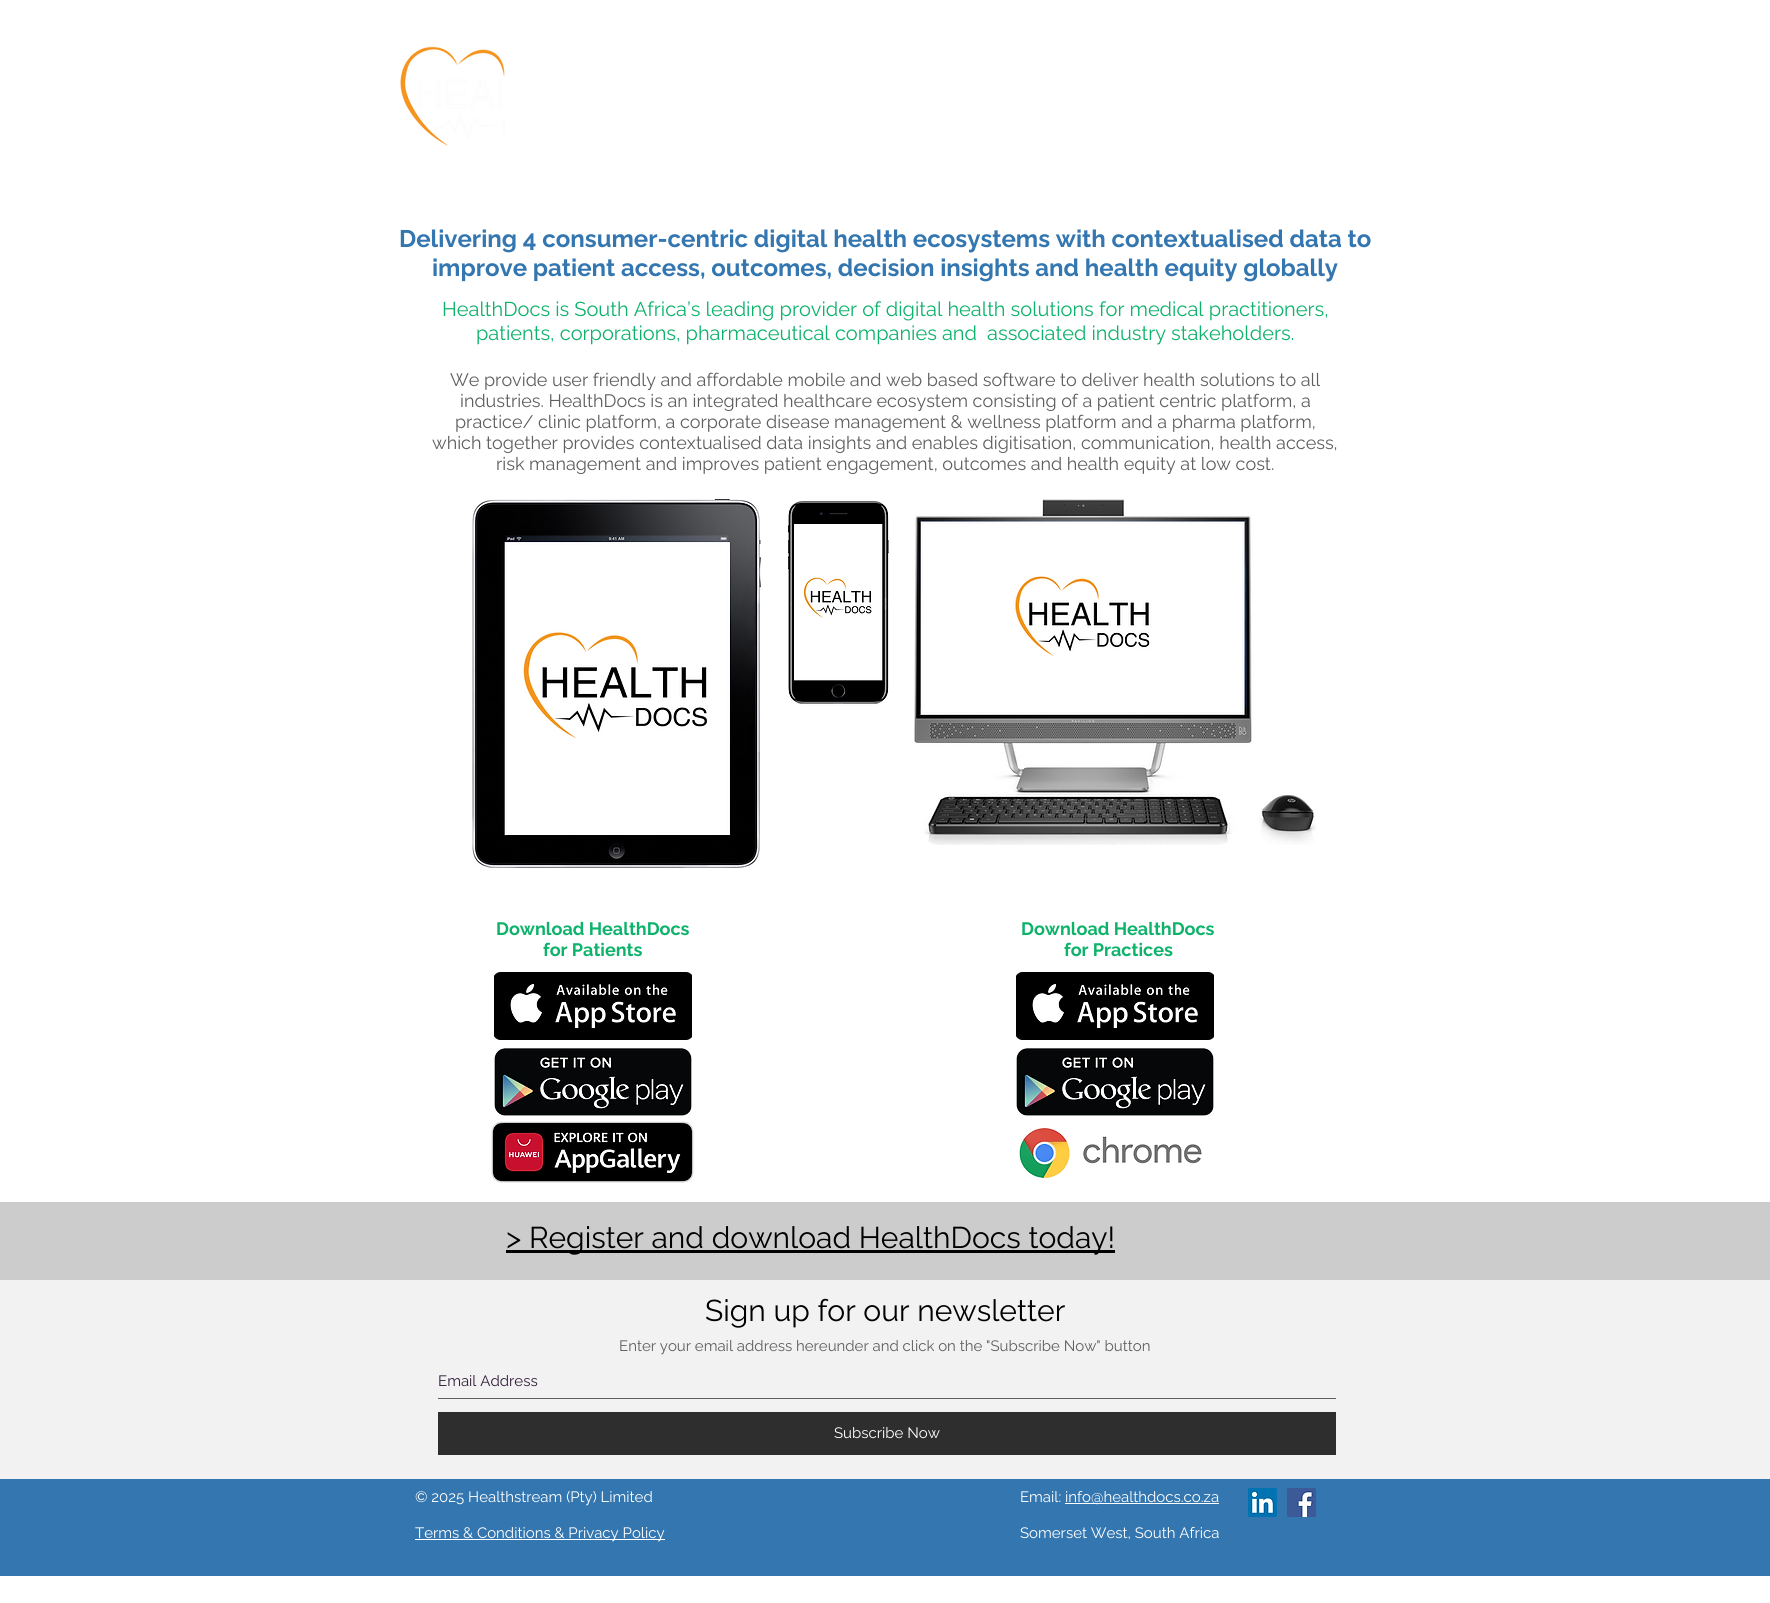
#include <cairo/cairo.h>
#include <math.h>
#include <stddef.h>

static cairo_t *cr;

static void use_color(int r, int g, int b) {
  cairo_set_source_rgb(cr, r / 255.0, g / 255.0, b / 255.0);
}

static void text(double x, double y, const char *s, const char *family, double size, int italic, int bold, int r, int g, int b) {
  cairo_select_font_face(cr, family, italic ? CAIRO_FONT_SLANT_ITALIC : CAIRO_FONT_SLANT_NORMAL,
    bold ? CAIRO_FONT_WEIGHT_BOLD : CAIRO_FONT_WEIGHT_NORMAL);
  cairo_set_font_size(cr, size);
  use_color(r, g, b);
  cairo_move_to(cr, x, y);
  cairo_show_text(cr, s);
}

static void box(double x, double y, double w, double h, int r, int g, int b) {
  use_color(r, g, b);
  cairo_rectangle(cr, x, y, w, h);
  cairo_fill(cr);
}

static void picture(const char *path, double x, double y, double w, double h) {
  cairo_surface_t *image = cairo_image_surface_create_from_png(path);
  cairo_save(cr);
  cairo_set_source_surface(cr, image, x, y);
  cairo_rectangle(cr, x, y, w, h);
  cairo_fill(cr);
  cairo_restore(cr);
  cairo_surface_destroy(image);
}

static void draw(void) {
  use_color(255, 255, 255);
  cairo_paint(cr);
  picture("img_01.png", 400, 46, 105, 100);
  picture("img_02.png", 472, 499, 289, 369);
  picture("img_03.png", 788, 501, 101, 205);
  picture("img_04.png", 914, 499, 403, 346);
  picture("img_05.png", 494, 972, 198, 68);
  picture("img_05.png", 1016, 972, 198, 68);
  picture("img_06.png", 494, 1048, 198, 68);
  picture("img_06.png", 1016, 1048, 198, 68);
  picture("img_07.png", 491, 1121, 203, 62);
  picture("img_08.png", 1019, 1128, 183, 50);
  box(0, 1202, 1770, 78, 204, 204, 204);
  box(506, 1250, 609, 3, 0, 0, 0);
  box(0, 1280, 1770, 199, 242, 242, 242);
  box(438, 1398, 898, 1, 96, 94, 94);
  box(438, 1412, 898, 43, 47, 46, 46);
  box(0, 1479, 1770, 97, 51, 118, 176);
  box(1065, 1503, 154, 1, 255, 255, 255);
  box(415, 1539, 250, 1, 255, 255, 255);
  picture("img_09.png", 1248, 1488, 29, 29);
  picture("img_10.png", 1287, 1488, 29, 29);
  text(399, 247, "Delivering 4 consumer-centric digital health ecosystems with contextualised data to", "Raleway", 24, 0, 1, 51, 118, 176);
  text(432, 276, "improve patient access, outcomes, decision insights and health equity globally", "Raleway", 24, 0, 1, 51, 118, 176);
  text(442, 316, "HealthDocs is South Africa’s leading provider of digital health solutions for medical practitioners,", "Raleway", 20, 0, 0, 13, 178, 107);
  text(476, 340, "patients, corporations, pharmaceutical companies and  associated industry stakeholders.", "Raleway", 20, 0, 0, 13, 178, 107);
  text(450, 386, "We provide user friendly and affordable mobile and web based software to deliver health solutions to all", "Raleway", 18, 0, 0, 96, 94, 94);
  text(460, 407, "industries. HealthDocs is an integrated healthcare ecosystem consisting of a patient centric platform, a", "Raleway", 18, 0, 0, 96, 94, 94);
  text(455, 428, "practice/ clinic platform, a corporate disease management & wellness platform and a pharma platform,", "Raleway", 18, 0, 0, 96, 94, 94);
  text(432, 449, "which together provides contextualised data insights and enables digitisation, communication, health access,", "Raleway", 18, 0, 0, 96, 94, 94);
  text(496, 470, "risk management and improves patient engagement, outcomes and health equity at low cost.", "Raleway", 18, 0, 0, 96, 94, 94);
  text(496, 935, "Download HealthDocs", "Raleway", 18, 0, 1, 13, 178, 107);
  text(543, 956, "for Patients", "Raleway", 18, 0, 1, 13, 178, 107);
  text(1021, 935, "Download HealthDocs", "Raleway", 18, 0, 1, 13, 178, 107);
  text(1064, 956, "for Practices", "Raleway", 18, 0, 1, 13, 178, 107);
  text(506, 1248, "> Register and download HealthDocs today!", "Raleway", 30, 0, 0, 0, 0, 0);
  text(705, 1321, "Sign up for our newsletter", "Raleway", 30, 0, 0, 0, 0, 0);
  text(619, 1351, "Enter your email address hereunder and click on the \"Subscribe Now\" button", "Raleway", 15, 0, 0, 96, 94, 94);
  text(438, 1386, "Email Address", "Raleway", 15, 0, 0, 48, 28, 56);
  text(834, 1438, "Subscribe Now", "Raleway", 15, 0, 0, 255, 255, 255);
  text(415, 1502, "© 2025 Healthstream (Pty) Limited                                                                                                Email:", "Raleway", 15, 0, 0, 255, 255, 255);
  text(1065, 1502, "info@healthdocs.co.za", "Raleway", 15, 0, 0, 255, 255, 255);
  text(415, 1538, "Terms & Conditions & Privacy Policy", "Raleway", 15, 0, 0, 255, 255, 255);
  text(1020, 1538, "Somerset West, South Africa", "Raleway", 15, 0, 0, 255, 255, 255);
}

int main(void) {
  cairo_surface_t *surface = cairo_image_surface_create(CAIRO_FORMAT_RGB24, 1770, 1603);
  cr = cairo_create(surface);
  cairo_font_options_t *options = cairo_font_options_create();
  cairo_font_options_set_hint_metrics(options, CAIRO_HINT_METRICS_OFF);
  cairo_font_options_set_hint_style(options, CAIRO_HINT_STYLE_NONE);
  cairo_set_font_options(cr, options);
  cairo_set_miter_limit(cr, 4);
  draw();
  cairo_surface_write_to_png(surface, "out.png");
  cairo_font_options_destroy(options);
  cairo_destroy(cr);
  cairo_surface_destroy(surface);
  return 0;
}
